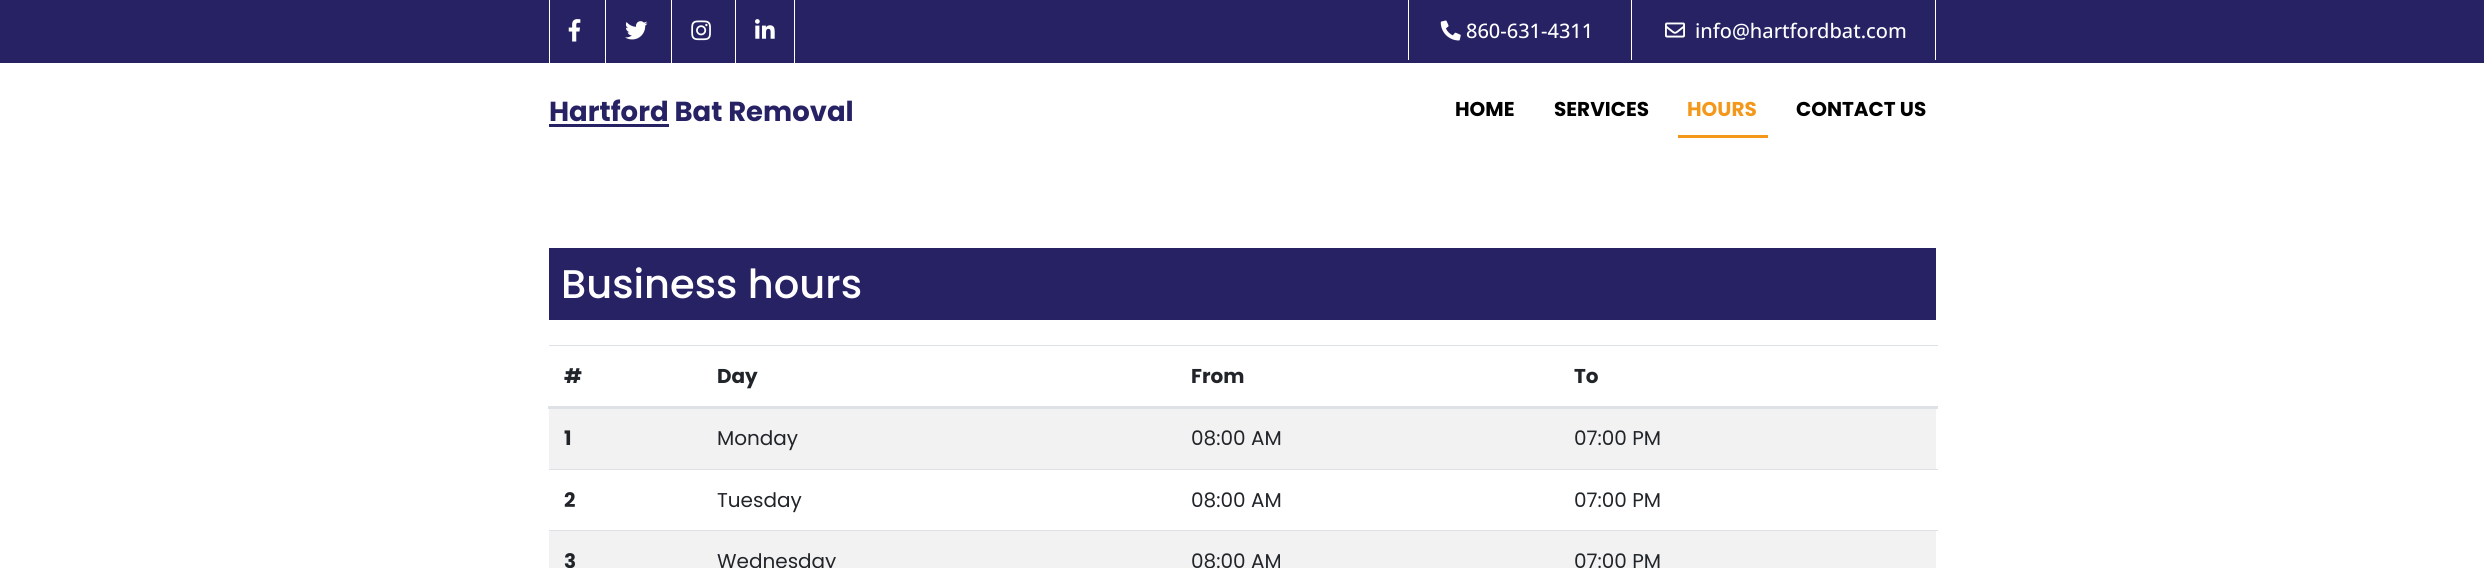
#include <cairo/cairo.h>
#include <math.h>
#include <stddef.h>

static cairo_t *cr;

static void use_color(int r, int g, int b) {
  cairo_set_source_rgb(cr, r / 255.0, g / 255.0, b / 255.0);
}

static void text(double x, double y, const char *s, const char *family, double size, int italic, int bold, int r, int g, int b) {
  cairo_select_font_face(cr, family, italic ? CAIRO_FONT_SLANT_ITALIC : CAIRO_FONT_SLANT_NORMAL,
    bold ? CAIRO_FONT_WEIGHT_BOLD : CAIRO_FONT_WEIGHT_NORMAL);
  cairo_set_font_size(cr, size);
  use_color(r, g, b);
  cairo_move_to(cr, x, y);
  cairo_show_text(cr, s);
}

static void box(double x, double y, double w, double h, int r, int g, int b) {
  use_color(r, g, b);
  cairo_rectangle(cr, x, y, w, h);
  cairo_fill(cr);
}

static void picture(const char *path, double x, double y, double w, double h) {
  cairo_surface_t *image = cairo_image_surface_create_from_png(path);
  cairo_save(cr);
  cairo_set_source_surface(cr, image, x, y);
  cairo_rectangle(cr, x, y, w, h);
  cairo_fill(cr);
  cairo_restore(cr);
  cairo_surface_destroy(image);
}

static void draw(void) {
  use_color(255, 255, 255);
  cairo_paint(cr);
  box(0, 0, 2484, 63, 39, 34, 100);
  box(549, 0, 1, 63, 255, 255, 255);
  picture("img_01.png", 568, 19, 13, 23);
  box(605, 0, 1, 63, 255, 255, 255);
  picture("img_02.png", 625, 21, 23, 19);
  box(671, 0, 1, 63, 255, 255, 255);
  picture("img_03.png", 691, 20, 20, 21);
  box(794, 0, 1, 63, 255, 255, 255);
  box(735, 0, 1, 63, 255, 255, 255);
  picture("img_04.png", 755, 19, 20, 20);
  box(1408, 0, 1, 60, 255, 255, 255);
  picture("img_05.png", 1440, 20, 21, 21);
  box(1935, 0, 1, 60, 255, 255, 255);
  box(1631, 0, 1, 60, 255, 255, 255);
  picture("img_06.png", 1665, 22, 20, 16);
  box(549, 124, 120, 3, 39, 34, 100);
  box(1678, 135, 90, 3, 244, 152, 27);
  box(549, 248, 1387, 72, 39, 34, 100);
  box(549, 345, 1389, 1, 222, 226, 230);
  box(548, 406, 1390, 3, 222, 226, 230);
  box(549, 409, 1387, 60, 242, 242, 242);
  box(549, 469, 1389, 1, 222, 226, 230);
  box(549, 531, 1387, 37, 242, 242, 242);
  box(549, 530, 1389, 1, 222, 226, 230);
  text(1466, 38, "860-631-4311", "Open Sans Medium", 20, 0, 0, 255, 255, 255);
  text(1695, 38, "info@hartfordbat.com", "Open Sans Medium", 20, 0, 0, 255, 255, 255);
  text(549, 121, "Hartford Bat Removal", "Poppins", 27.5, 0, 1, 39, 34, 100);
  text(1455, 116, "HOME", "Poppins", 20, 0, 1, 0, 0, 0);
  text(1554, 116, "SERVICES", "Poppins", 20, 0, 1, 0, 0, 0);
  text(1687, 116, "HOURS", "Poppins", 20, 0, 1, 244, 152, 27);
  text(1796, 116, "CONTACT US", "Poppins", 20, 0, 1, 0, 0, 0);
  text(561, 298, "Business hours", "Poppins Medium", 40, 0, 0, 255, 255, 255);
  text(564, 383, "#", "Poppins", 20, 0, 1, 33, 37, 41);
  text(717, 383, "Day", "Poppins", 20, 0, 1, 33, 37, 41);
  text(1191, 383, "From", "Poppins", 20, 0, 1, 33, 37, 41);
  text(1574, 383, "To", "Poppins", 20, 0, 1, 33, 37, 41);
  text(564, 445, "1", "Poppins", 20, 0, 1, 33, 37, 41);
  text(717, 445, "Monday", "Poppins", 20, 0, 0, 33, 37, 41);
  text(1191, 445, "08:00 AM", "Poppins", 20, 0, 0, 33, 37, 41);
  text(1574, 445, "07:00 PM", "Poppins", 20, 0, 0, 33, 37, 41);
  text(564, 507, "2", "Poppins", 20, 0, 1, 33, 37, 41);
  text(717, 507, "Tuesday", "Poppins", 20, 0, 0, 33, 37, 41);
  text(1191, 507, "08:00 AM", "Poppins", 20, 0, 0, 33, 37, 41);
  text(1574, 507, "07:00 PM", "Poppins", 20, 0, 0, 33, 37, 41);
  text(564, 568, "3", "Poppins", 20, 0, 1, 33, 37, 41);
  text(717, 568, "Wednesday", "Poppins", 20, 0, 0, 33, 37, 41);
  text(1191, 568, "08:00 AM", "Poppins", 20, 0, 0, 33, 37, 41);
  text(1574, 568, "07:00 PM", "Poppins", 20, 0, 0, 33, 37, 41);
}

int main(void) {
  cairo_surface_t *surface = cairo_image_surface_create(CAIRO_FORMAT_RGB24, 2484, 568);
  cr = cairo_create(surface);
  cairo_font_options_t *options = cairo_font_options_create();
  cairo_font_options_set_hint_metrics(options, CAIRO_HINT_METRICS_OFF);
  cairo_font_options_set_hint_style(options, CAIRO_HINT_STYLE_NONE);
  cairo_set_font_options(cr, options);
  cairo_set_miter_limit(cr, 4);
  draw();
  cairo_surface_write_to_png(surface, "out.png");
  cairo_font_options_destroy(options);
  cairo_destroy(cr);
  cairo_surface_destroy(surface);
  return 0;
}
